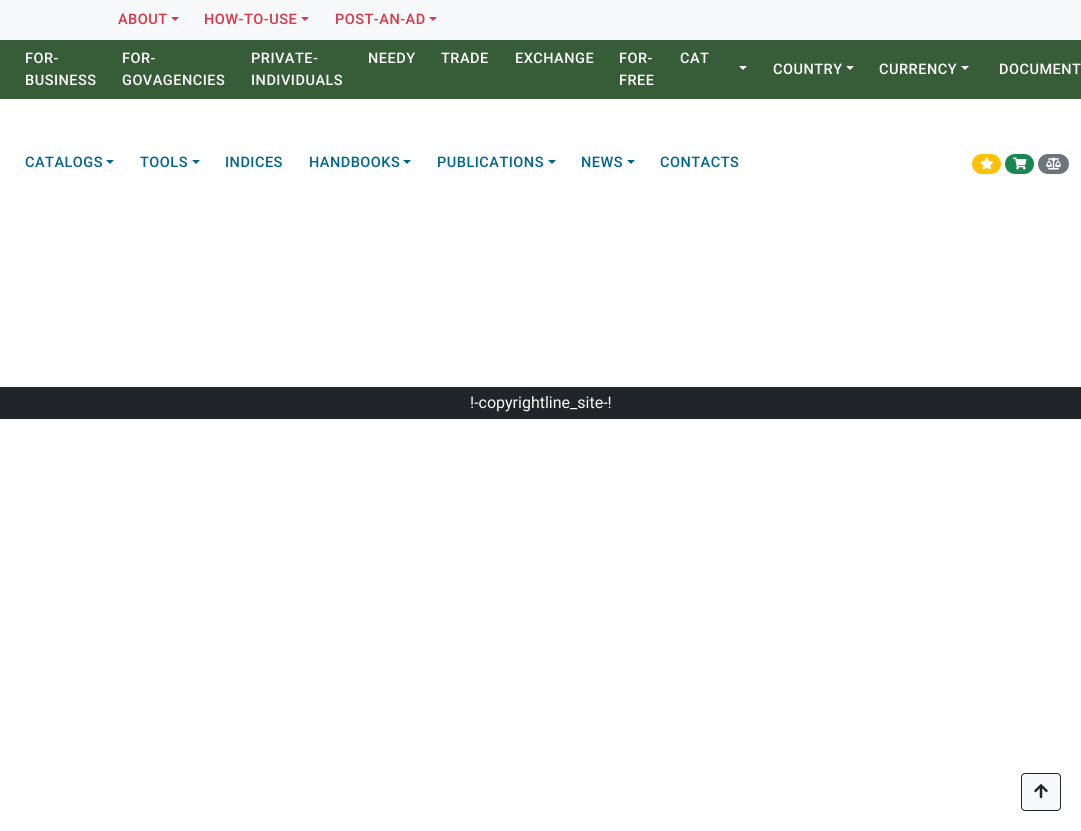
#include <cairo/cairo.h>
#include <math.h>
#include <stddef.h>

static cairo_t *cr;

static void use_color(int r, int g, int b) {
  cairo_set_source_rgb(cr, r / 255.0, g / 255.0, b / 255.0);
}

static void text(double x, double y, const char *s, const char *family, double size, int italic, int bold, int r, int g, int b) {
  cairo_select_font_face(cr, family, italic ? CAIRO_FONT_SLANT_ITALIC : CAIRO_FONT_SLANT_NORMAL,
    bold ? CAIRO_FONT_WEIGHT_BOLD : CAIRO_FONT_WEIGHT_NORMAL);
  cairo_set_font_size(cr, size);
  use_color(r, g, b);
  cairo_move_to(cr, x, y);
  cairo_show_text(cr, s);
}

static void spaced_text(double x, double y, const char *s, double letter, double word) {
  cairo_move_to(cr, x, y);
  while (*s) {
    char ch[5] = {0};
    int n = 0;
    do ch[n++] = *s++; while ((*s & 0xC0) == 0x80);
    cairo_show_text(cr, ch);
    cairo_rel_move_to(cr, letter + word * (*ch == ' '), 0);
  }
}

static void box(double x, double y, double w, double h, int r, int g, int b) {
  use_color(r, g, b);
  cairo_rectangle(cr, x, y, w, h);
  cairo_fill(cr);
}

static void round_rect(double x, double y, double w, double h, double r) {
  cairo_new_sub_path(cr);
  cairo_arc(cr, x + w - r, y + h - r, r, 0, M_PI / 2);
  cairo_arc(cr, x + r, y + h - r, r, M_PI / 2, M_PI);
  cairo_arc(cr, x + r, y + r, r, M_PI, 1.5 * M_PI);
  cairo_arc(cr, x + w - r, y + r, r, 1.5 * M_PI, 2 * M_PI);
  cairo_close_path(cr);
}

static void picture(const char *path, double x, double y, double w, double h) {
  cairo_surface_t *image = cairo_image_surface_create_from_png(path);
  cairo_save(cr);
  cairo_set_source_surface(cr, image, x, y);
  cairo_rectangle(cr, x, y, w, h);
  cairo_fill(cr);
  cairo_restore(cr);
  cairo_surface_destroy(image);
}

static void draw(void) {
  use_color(255, 255, 255);
  cairo_paint(cr);
  box(0, 0, 1081, 40, 248, 249, 250);
  use_color(220, 53, 69);
  cairo_new_path(cr);
  cairo_move_to(cr, 171, 17);
  cairo_line_to(cr, 179, 17);
  cairo_line_to(cr, 175, 21);
  cairo_close_path(cr);
  cairo_fill(cr);
  cairo_new_path(cr);
  cairo_move_to(cr, 301, 17);
  cairo_line_to(cr, 309, 17);
  cairo_line_to(cr, 305, 21);
  cairo_close_path(cr);
  cairo_fill(cr);
  cairo_new_path(cr);
  cairo_move_to(cr, 429, 17);
  cairo_line_to(cr, 437, 17);
  cairo_line_to(cr, 433, 21);
  cairo_close_path(cr);
  cairo_fill(cr);
  box(0, 40, 1081, 59, 55, 92, 56);
  use_color(255, 255, 255);
  cairo_new_path(cr);
  cairo_move_to(cr, 739, 66);
  cairo_line_to(cr, 747, 66);
  cairo_line_to(cr, 743, 70);
  cairo_close_path(cr);
  cairo_fill(cr);
  cairo_new_path(cr);
  cairo_move_to(cr, 846, 66);
  cairo_line_to(cr, 854, 66);
  cairo_line_to(cr, 850, 70);
  cairo_close_path(cr);
  cairo_fill(cr);
  cairo_new_path(cr);
  cairo_move_to(cr, 961, 66);
  cairo_line_to(cr, 969, 66);
  cairo_line_to(cr, 965, 70);
  cairo_close_path(cr);
  cairo_fill(cr);
  use_color(0, 102, 141);
  cairo_new_path(cr);
  cairo_move_to(cr, 106, 160);
  cairo_line_to(cr, 114, 160);
  cairo_line_to(cr, 110, 164);
  cairo_close_path(cr);
  cairo_fill(cr);
  cairo_new_path(cr);
  cairo_move_to(cr, 192, 160);
  cairo_line_to(cr, 200, 160);
  cairo_line_to(cr, 196, 164);
  cairo_close_path(cr);
  cairo_fill(cr);
  cairo_new_path(cr);
  cairo_move_to(cr, 403, 160);
  cairo_line_to(cr, 411, 160);
  cairo_line_to(cr, 407, 164);
  cairo_close_path(cr);
  cairo_fill(cr);
  cairo_new_path(cr);
  cairo_move_to(cr, 548, 160);
  cairo_line_to(cr, 556, 160);
  cairo_line_to(cr, 552, 164);
  cairo_close_path(cr);
  cairo_fill(cr);
  cairo_new_path(cr);
  cairo_move_to(cr, 627, 160);
  cairo_line_to(cr, 635, 160);
  cairo_line_to(cr, 631, 164);
  cairo_close_path(cr);
  cairo_fill(cr);
  use_color(255, 193, 7);
  round_rect(972, 154, 29, 20, 10);
  cairo_fill(cr);
  picture("img_01.png", 980, 157, 13, 13);
  use_color(25, 135, 84);
  round_rect(1005, 154, 29, 20, 10);
  cairo_fill(cr);
  picture("img_02.png", 1013, 157, 14, 13);
  use_color(108, 117, 125);
  round_rect(1038, 154, 31, 20, 10);
  cairo_fill(cr);
  picture("img_03.png", 1046, 157, 15, 13);
  box(0, 387, 1081, 32, 33, 37, 41);
  use_color(248, 249, 250);
  round_rect(1021.5, 773.5, 39, 37, 3.5);
  cairo_fill_preserve(cr);
  use_color(33, 37, 41);
  cairo_set_line_width(cr, 1);
  cairo_stroke(cr);
  picture("img_04.png", 1034, 784, 14, 14);
  cairo_select_font_face(cr, "Roboto Medium", CAIRO_FONT_SLANT_NORMAL, CAIRO_FONT_WEIGHT_NORMAL);
  cairo_set_font_size(cr, 14.5);
  use_color(220, 53, 69);
  spaced_text(118, 24, "ABOUT", 0.5, 0);
  spaced_text(204, 24, "HOW-TO-USE", 0.5, 0);
  spaced_text(335, 24, "POST-AN-AD", 0.5, 0);
  use_color(255, 255, 255);
  spaced_text(25, 63, "FOR-", 0.5, 0);
  spaced_text(25, 85, "BUSINESS", 0.5, 0);
  spaced_text(122, 63, "FOR-", 0.5, 0);
  spaced_text(122, 85, "GOVAGENCIES", 0.5, 0);
  spaced_text(251, 63, "PRIVATE-", 0.5, 0);
  spaced_text(251, 85, "INDIVIDUALS", 0.5, 0);
  spaced_text(368, 63, "NEEDY", 0.5, 0);
  spaced_text(441, 63, "TRADE", 0.5, 0);
  spaced_text(515, 63, "EXCHANGE", 0.5, 0);
  spaced_text(619, 63, "FOR-", 0.5, 0);
  spaced_text(619, 85, "FREE", 0.5, 0);
  spaced_text(680, 63, "CAT", 0.5, 0);
  spaced_text(773, 74, "COUNTRY", 0.5, 0);
  spaced_text(879, 74, "CURRENCY", 0.5, 0);
  spaced_text(999, 74, "DOCUMENT", 0.5, 0);
  use_color(0, 102, 141);
  spaced_text(25, 167, "CATALOGS", 0.5, 0);
  spaced_text(140, 167, "TOOLS", 0.5, 0);
  spaced_text(225, 167, "INDICES", 0.5, 0);
  spaced_text(309, 167, "HANDBOOKS", 0.5, 0);
  spaced_text(437, 167, "PUBLICATIONS", 0.5, 0);
  spaced_text(581, 167, "NEWS", 0.5, 0);
  spaced_text(660, 167, "CONTACTS", 0.5, 0);
  text(470, 408, "!-copyrightline_site-!", "Roboto", 16, 0, 0, 248, 249, 250);
}

int main(void) {
  cairo_surface_t *surface = cairo_image_surface_create(CAIRO_FORMAT_RGB24, 1081, 831);
  cr = cairo_create(surface);
  cairo_font_options_t *options = cairo_font_options_create();
  cairo_font_options_set_hint_metrics(options, CAIRO_HINT_METRICS_OFF);
  cairo_font_options_set_hint_style(options, CAIRO_HINT_STYLE_NONE);
  cairo_set_font_options(cr, options);
  cairo_set_miter_limit(cr, 4);
  draw();
  cairo_surface_write_to_png(surface, "out.png");
  cairo_font_options_destroy(options);
  cairo_destroy(cr);
  cairo_surface_destroy(surface);
  return 0;
}
